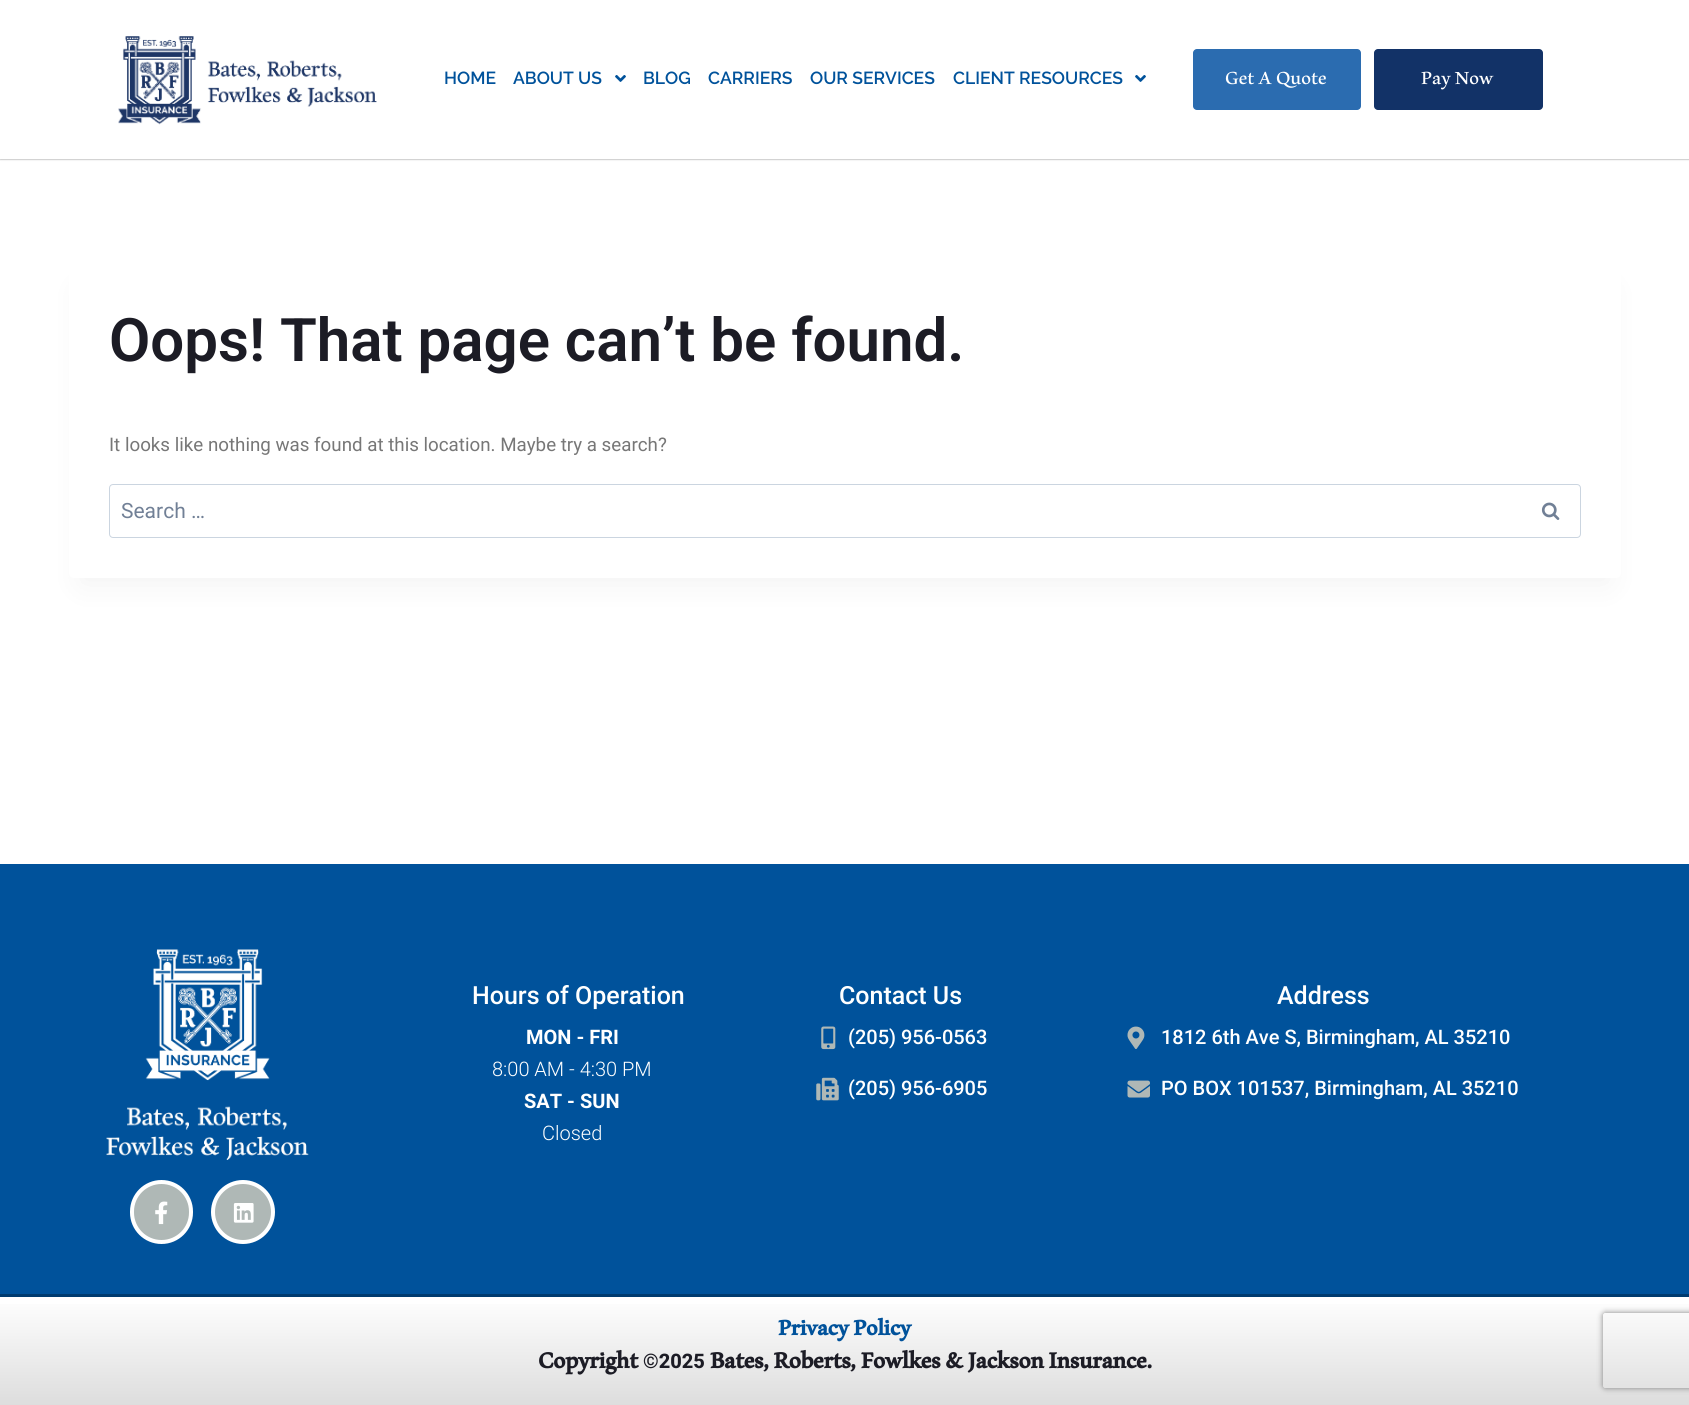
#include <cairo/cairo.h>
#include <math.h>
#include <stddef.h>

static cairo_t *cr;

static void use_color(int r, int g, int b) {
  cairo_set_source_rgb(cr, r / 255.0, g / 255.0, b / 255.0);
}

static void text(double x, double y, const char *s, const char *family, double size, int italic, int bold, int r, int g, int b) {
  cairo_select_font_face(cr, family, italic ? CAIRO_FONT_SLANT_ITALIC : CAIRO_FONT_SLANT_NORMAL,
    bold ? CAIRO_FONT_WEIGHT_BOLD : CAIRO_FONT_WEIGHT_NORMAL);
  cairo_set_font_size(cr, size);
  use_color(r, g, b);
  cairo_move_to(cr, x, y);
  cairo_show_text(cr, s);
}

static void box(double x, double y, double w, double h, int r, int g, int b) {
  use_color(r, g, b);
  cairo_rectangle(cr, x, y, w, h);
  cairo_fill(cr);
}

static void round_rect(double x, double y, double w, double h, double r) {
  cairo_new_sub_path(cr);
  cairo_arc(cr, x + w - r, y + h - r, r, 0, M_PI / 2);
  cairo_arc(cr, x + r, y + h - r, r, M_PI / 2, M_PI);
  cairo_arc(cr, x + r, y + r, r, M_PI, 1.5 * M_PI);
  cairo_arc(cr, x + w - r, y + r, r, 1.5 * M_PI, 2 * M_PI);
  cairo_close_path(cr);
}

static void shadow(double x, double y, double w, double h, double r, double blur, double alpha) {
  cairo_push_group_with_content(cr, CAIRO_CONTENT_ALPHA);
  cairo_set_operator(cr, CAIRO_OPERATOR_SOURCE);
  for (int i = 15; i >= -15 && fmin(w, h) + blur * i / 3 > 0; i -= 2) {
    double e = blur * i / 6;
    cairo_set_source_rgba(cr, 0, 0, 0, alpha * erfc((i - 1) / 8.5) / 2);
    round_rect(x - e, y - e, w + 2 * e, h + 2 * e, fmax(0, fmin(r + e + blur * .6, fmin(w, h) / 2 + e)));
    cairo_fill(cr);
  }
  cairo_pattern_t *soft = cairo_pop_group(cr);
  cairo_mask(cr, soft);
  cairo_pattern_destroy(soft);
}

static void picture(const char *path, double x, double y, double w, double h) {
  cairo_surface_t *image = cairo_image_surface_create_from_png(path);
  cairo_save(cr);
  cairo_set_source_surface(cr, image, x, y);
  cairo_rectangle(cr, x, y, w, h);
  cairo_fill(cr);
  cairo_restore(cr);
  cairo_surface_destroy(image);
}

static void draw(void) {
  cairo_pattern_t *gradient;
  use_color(255, 255, 255);
  cairo_paint(cr);
  use_color(0, 0, 0);
  shadow(0, 0, 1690, 159, 0, 1, 0.5);
  box(0, 0, 1689, 159, 255, 255, 255);
  picture("img_01.png", 118, 36, 259, 89);
  picture("img_02.png", 615, 75, 11, 7);
  picture("img_02.png", 1135, 75, 11, 7);
  use_color(43, 108, 176);
  round_rect(1193, 49, 168, 61, 4);
  cairo_fill(cr);
  use_color(18, 50, 103);
  round_rect(1374, 49, 169, 61, 4);
  cairo_fill(cr);
  use_color(0, 0, 0);
  shadow(81, 290, 1528, 294, 0, 15.5, 0.05);
  use_color(255, 255, 255);
  round_rect(69, 259, 1552, 319, 5);
  cairo_fill(cr);
  round_rect(109.5, 484.5, 1471, 53, 3.5);
  use_color(203, 213, 224);
  cairo_set_line_width(cr, 1);
  cairo_stroke(cr);
  picture("img_03.png", 1541, 502, 19, 18);
  box(0, 864, 1689, 430, 0, 82, 155);
  picture("img_04.png", 106, 949, 203, 211);
  use_color(175, 184, 182);
  round_rect(132, 1182, 59, 60, 29.5);
  cairo_fill_preserve(cr);
  use_color(255, 255, 255);
  cairo_set_line_width(cr, 4);
  cairo_stroke(cr);
  picture("img_05.png", 155, 1201, 13, 24);
  use_color(175, 184, 182);
  cairo_arc(cr, 243, 1212, 30, 0, 2 * M_PI);
  cairo_fill_preserve(cr);
  use_color(255, 255, 255);
  cairo_stroke(cr);
  picture("img_06.png", 233, 1203, 21, 20);
  picture("img_07.png", 821, 1026, 15, 24);
  picture("img_08.png", 816, 1077, 23, 24);
  picture("img_09.png", 1127, 1026, 18, 23);
  picture("img_10.png", 1127, 1080, 23, 18);
  gradient = cairo_pattern_create_linear(845, 1296, 845, 1405);
  cairo_pattern_add_color_stop_rgba(gradient, 0, 1, 1, 1, 1);
  cairo_pattern_add_color_stop_rgba(gradient, 1, 0.867, 0.867, 0.867, 1);
  cairo_set_source(cr, gradient);
  cairo_pattern_destroy(gradient);
  cairo_rectangle(cr, 0, 1304, 1689, 101);
  cairo_fill(cr);
  box(0, 1294, 1689, 3, 0, 59, 111);
  cairo_save(cr);
  cairo_set_fill_rule(cr, CAIRO_FILL_RULE_EVEN_ODD);
  cairo_new_path(cr);
  cairo_move_to(cr, 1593, 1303);
  cairo_line_to(cr, 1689, 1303);
  cairo_line_to(cr, 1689, 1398);
  cairo_line_to(cr, 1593, 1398);
  cairo_close_path(cr);
  cairo_move_to(cr, 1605.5, 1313);
  cairo_line_to(cr, 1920.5, 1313);
  cairo_curve_to(cr, 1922, 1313, 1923, 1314, 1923, 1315.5);
  cairo_line_to(cr, 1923, 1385.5);
  cairo_curve_to(cr, 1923, 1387, 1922, 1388, 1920.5, 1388);
  cairo_line_to(cr, 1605.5, 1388);
  cairo_curve_to(cr, 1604, 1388, 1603, 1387, 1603, 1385.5);
  cairo_line_to(cr, 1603, 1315.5);
  cairo_curve_to(cr, 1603, 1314, 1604, 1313, 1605.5, 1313);
  cairo_close_path(cr);
  cairo_clip(cr);
  use_color(128, 128, 128);
  shadow(1603, 1313, 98, 75, 2.5, 3, 1);
  cairo_restore(cr);
  text(444, 84, "HOME", "Raleway SemiBold", 17.5, 0, 0, 0, 82, 155);
  text(513, 84, "ABOUT US", "Raleway SemiBold", 17.5, 0, 0, 0, 82, 155);
  text(643, 84, "BLOG", "Raleway SemiBold", 17.5, 0, 0, 0, 82, 155);
  text(708, 84, "CARRIERS", "Raleway SemiBold", 17.5, 0, 0, 0, 82, 155);
  text(810, 84, "OUR SERVICES", "Raleway SemiBold", 17.5, 0, 0, 0, 82, 155);
  text(953, 84, "CLIENT RESOURCES", "Raleway SemiBold", 17.5, 0, 0, 0, 82, 155);
  text(1225, 84, "Get A Quote", "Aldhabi", 31, 0, 0, 255, 255, 255);
  text(1421, 84, "Pay Now", "Aldhabi", 31, 0, 0, 255, 255, 255);
  text(109, 361, "Oops! That page can’t be found.", "Roboto SemiBold", 60, 0, 0, 28, 28, 37);
  text(109, 451, "It looks like nothing was found at this location. Maybe try a search?", "Roboto", 18.75, 0, 0, 119, 119, 119);
  text(121, 518, "Search …", "Roboto", 21, 0, 0, 113, 128, 150);
  text(472, 1004, "Hours of Operation", "Roboto Medium", 25, 0, 0, 255, 255, 255);
  text(526, 1044, "MON - FRI", "Roboto", 20, 0, 1, 255, 255, 255);
  text(492, 1076, "8:00 AM - 4:30 PM", "Roboto Light", 20, 0, 0, 255, 255, 255);
  text(524, 1108, "SAT - SUN", "Roboto", 20, 0, 1, 255, 255, 255);
  text(542, 1140, "Closed", "Roboto Light", 20, 0, 0, 255, 255, 255);
  text(839, 1004, "Contact Us", "Roboto Medium", 25, 0, 0, 255, 255, 255);
  text(848, 1044, "(205) 956-0563", "Roboto Medium", 20, 0, 0, 255, 255, 255);
  text(848, 1095, "(205) 956-6905", "Roboto Medium", 20, 0, 0, 255, 255, 255);
  text(1277, 1004, "Address", "Roboto Medium", 25, 0, 0, 255, 255, 255);
  text(1161, 1044, "1812 6th Ave S, Birmingham, AL 35210", "Roboto Medium", 20, 0, 0, 255, 255, 255);
  text(1161, 1095, "PO BOX 101537, Birmingham, AL 35210", "Roboto Medium", 20, 0, 0, 255, 255, 255);
  text(778, 1335, "Privacy Policy", "Aldhabi", 36, 0, 1, 0, 82, 155);
  text(538, 1368, "Copyright", "Aldhabi", 37.5, 0, 1, 28, 28, 37);
  text(643, 1368, "©2025", "Roboto ExtraBold", 20, 0, 0, 28, 28, 37);
  text(710, 1368, "Bates, Roberts, Fowlkes & Jackson Insurance.", "Aldhabi", 37.5, 0, 1, 28, 28, 37);
}

int main(void) {
  cairo_surface_t *surface = cairo_image_surface_create(CAIRO_FORMAT_RGB24, 1689, 1405);
  cr = cairo_create(surface);
  cairo_font_options_t *options = cairo_font_options_create();
  cairo_font_options_set_hint_metrics(options, CAIRO_HINT_METRICS_OFF);
  cairo_font_options_set_hint_style(options, CAIRO_HINT_STYLE_NONE);
  cairo_set_font_options(cr, options);
  cairo_set_miter_limit(cr, 4);
  draw();
  cairo_surface_write_to_png(surface, "out.png");
  cairo_font_options_destroy(options);
  cairo_destroy(cr);
  cairo_surface_destroy(surface);
  return 0;
}
